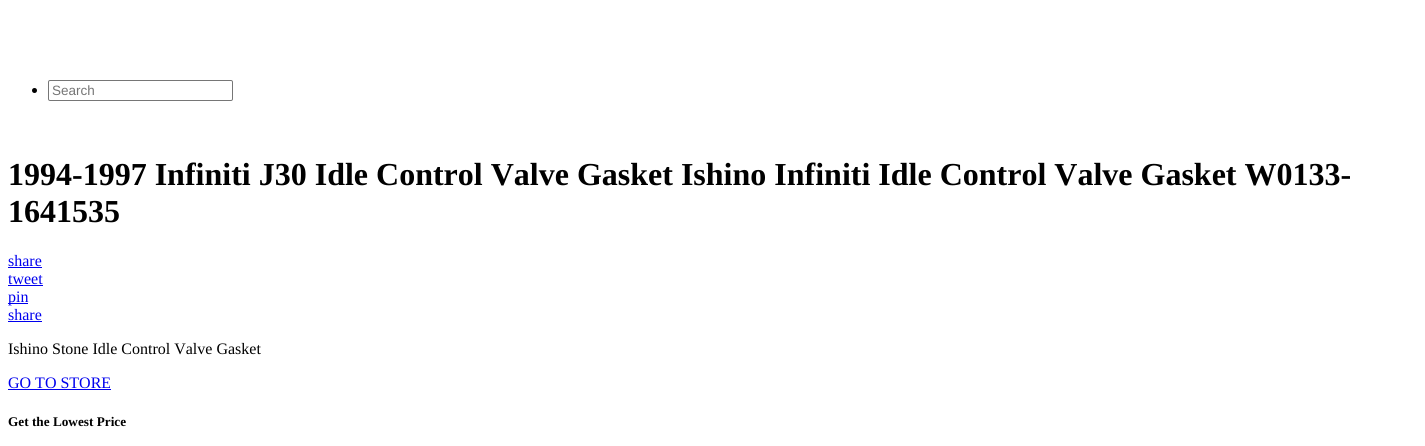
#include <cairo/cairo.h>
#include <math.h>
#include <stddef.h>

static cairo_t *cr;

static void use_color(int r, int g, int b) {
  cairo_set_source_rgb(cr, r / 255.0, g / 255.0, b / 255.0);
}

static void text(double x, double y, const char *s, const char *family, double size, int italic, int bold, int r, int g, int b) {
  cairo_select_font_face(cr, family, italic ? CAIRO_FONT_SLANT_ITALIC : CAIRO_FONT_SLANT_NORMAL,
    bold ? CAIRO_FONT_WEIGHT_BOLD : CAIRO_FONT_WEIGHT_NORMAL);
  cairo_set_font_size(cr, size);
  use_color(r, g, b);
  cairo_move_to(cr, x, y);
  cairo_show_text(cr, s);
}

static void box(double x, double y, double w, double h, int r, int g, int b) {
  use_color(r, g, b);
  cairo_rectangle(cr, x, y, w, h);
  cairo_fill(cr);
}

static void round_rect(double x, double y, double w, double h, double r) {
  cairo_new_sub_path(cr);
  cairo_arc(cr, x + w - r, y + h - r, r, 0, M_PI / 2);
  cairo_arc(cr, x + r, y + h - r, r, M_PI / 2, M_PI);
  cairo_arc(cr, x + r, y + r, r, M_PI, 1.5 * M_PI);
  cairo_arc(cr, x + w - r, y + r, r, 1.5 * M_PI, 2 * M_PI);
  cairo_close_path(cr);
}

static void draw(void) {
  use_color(255, 255, 255);
  cairo_paint(cr);
  use_color(0, 0, 0);
  cairo_arc(cr, 34.5, 90.5, 2.5, 0, 2 * M_PI);
  cairo_fill(cr);
  round_rect(48.5, 80.5, 184, 20, 1.5);
  use_color(118, 118, 118);
  cairo_set_line_width(cr, 1);
  cairo_stroke(cr);
  box(8, 267, 34, 1, 0, 0, 238);
  box(8, 285, 35, 1, 0, 0, 238);
  box(8, 303, 20, 1, 0, 0, 238);
  box(8, 321, 34, 1, 0, 0, 238);
  box(8, 389, 103, 1, 0, 0, 238);
  text(52, 95, "Search", "Liberation Sans", 13.5, 0, 0, 117, 117, 117);
  text(8, 185, "1994-1997 Infiniti J30 Idle Control Valve Gasket Ishino Infiniti Idle Control Valve Gasket W0133-", "Liberation Serif", 32, 0, 1, 0, 0, 0);
  text(8, 222, "1641535", "Liberation Serif", 32, 0, 1, 0, 0, 0);
  text(8, 266, "share", "Liberation Serif", 16, 0, 0, 0, 0, 238);
  text(8, 284, "tweet", "Liberation Serif", 16, 0, 0, 0, 0, 238);
  text(8, 302, "pin", "Liberation Serif", 16, 0, 0, 0, 0, 238);
  text(8, 320, "share", "Liberation Serif", 16, 0, 0, 0, 0, 238);
  text(8, 354, "Ishino Stone Idle Control Valve Gasket", "Liberation Serif", 16, 0, 0, 0, 0, 0);
  text(8, 388, "GO TO STORE", "Liberation Serif", 16, 0, 0, 0, 0, 238);
  text(8, 426, "Get the Lowest Price", "Liberation Serif", 13.25, 0, 1, 0, 0, 0);
}

int main(void) {
  cairo_surface_t *surface = cairo_image_surface_create(CAIRO_FORMAT_RGB24, 1425, 446);
  cr = cairo_create(surface);
  cairo_font_options_t *options = cairo_font_options_create();
  cairo_font_options_set_hint_metrics(options, CAIRO_HINT_METRICS_OFF);
  cairo_font_options_set_hint_style(options, CAIRO_HINT_STYLE_NONE);
  cairo_set_font_options(cr, options);
  cairo_set_miter_limit(cr, 4);
  draw();
  cairo_surface_write_to_png(surface, "out.png");
  cairo_font_options_destroy(options);
  cairo_destroy(cr);
  cairo_surface_destroy(surface);
  return 0;
}
